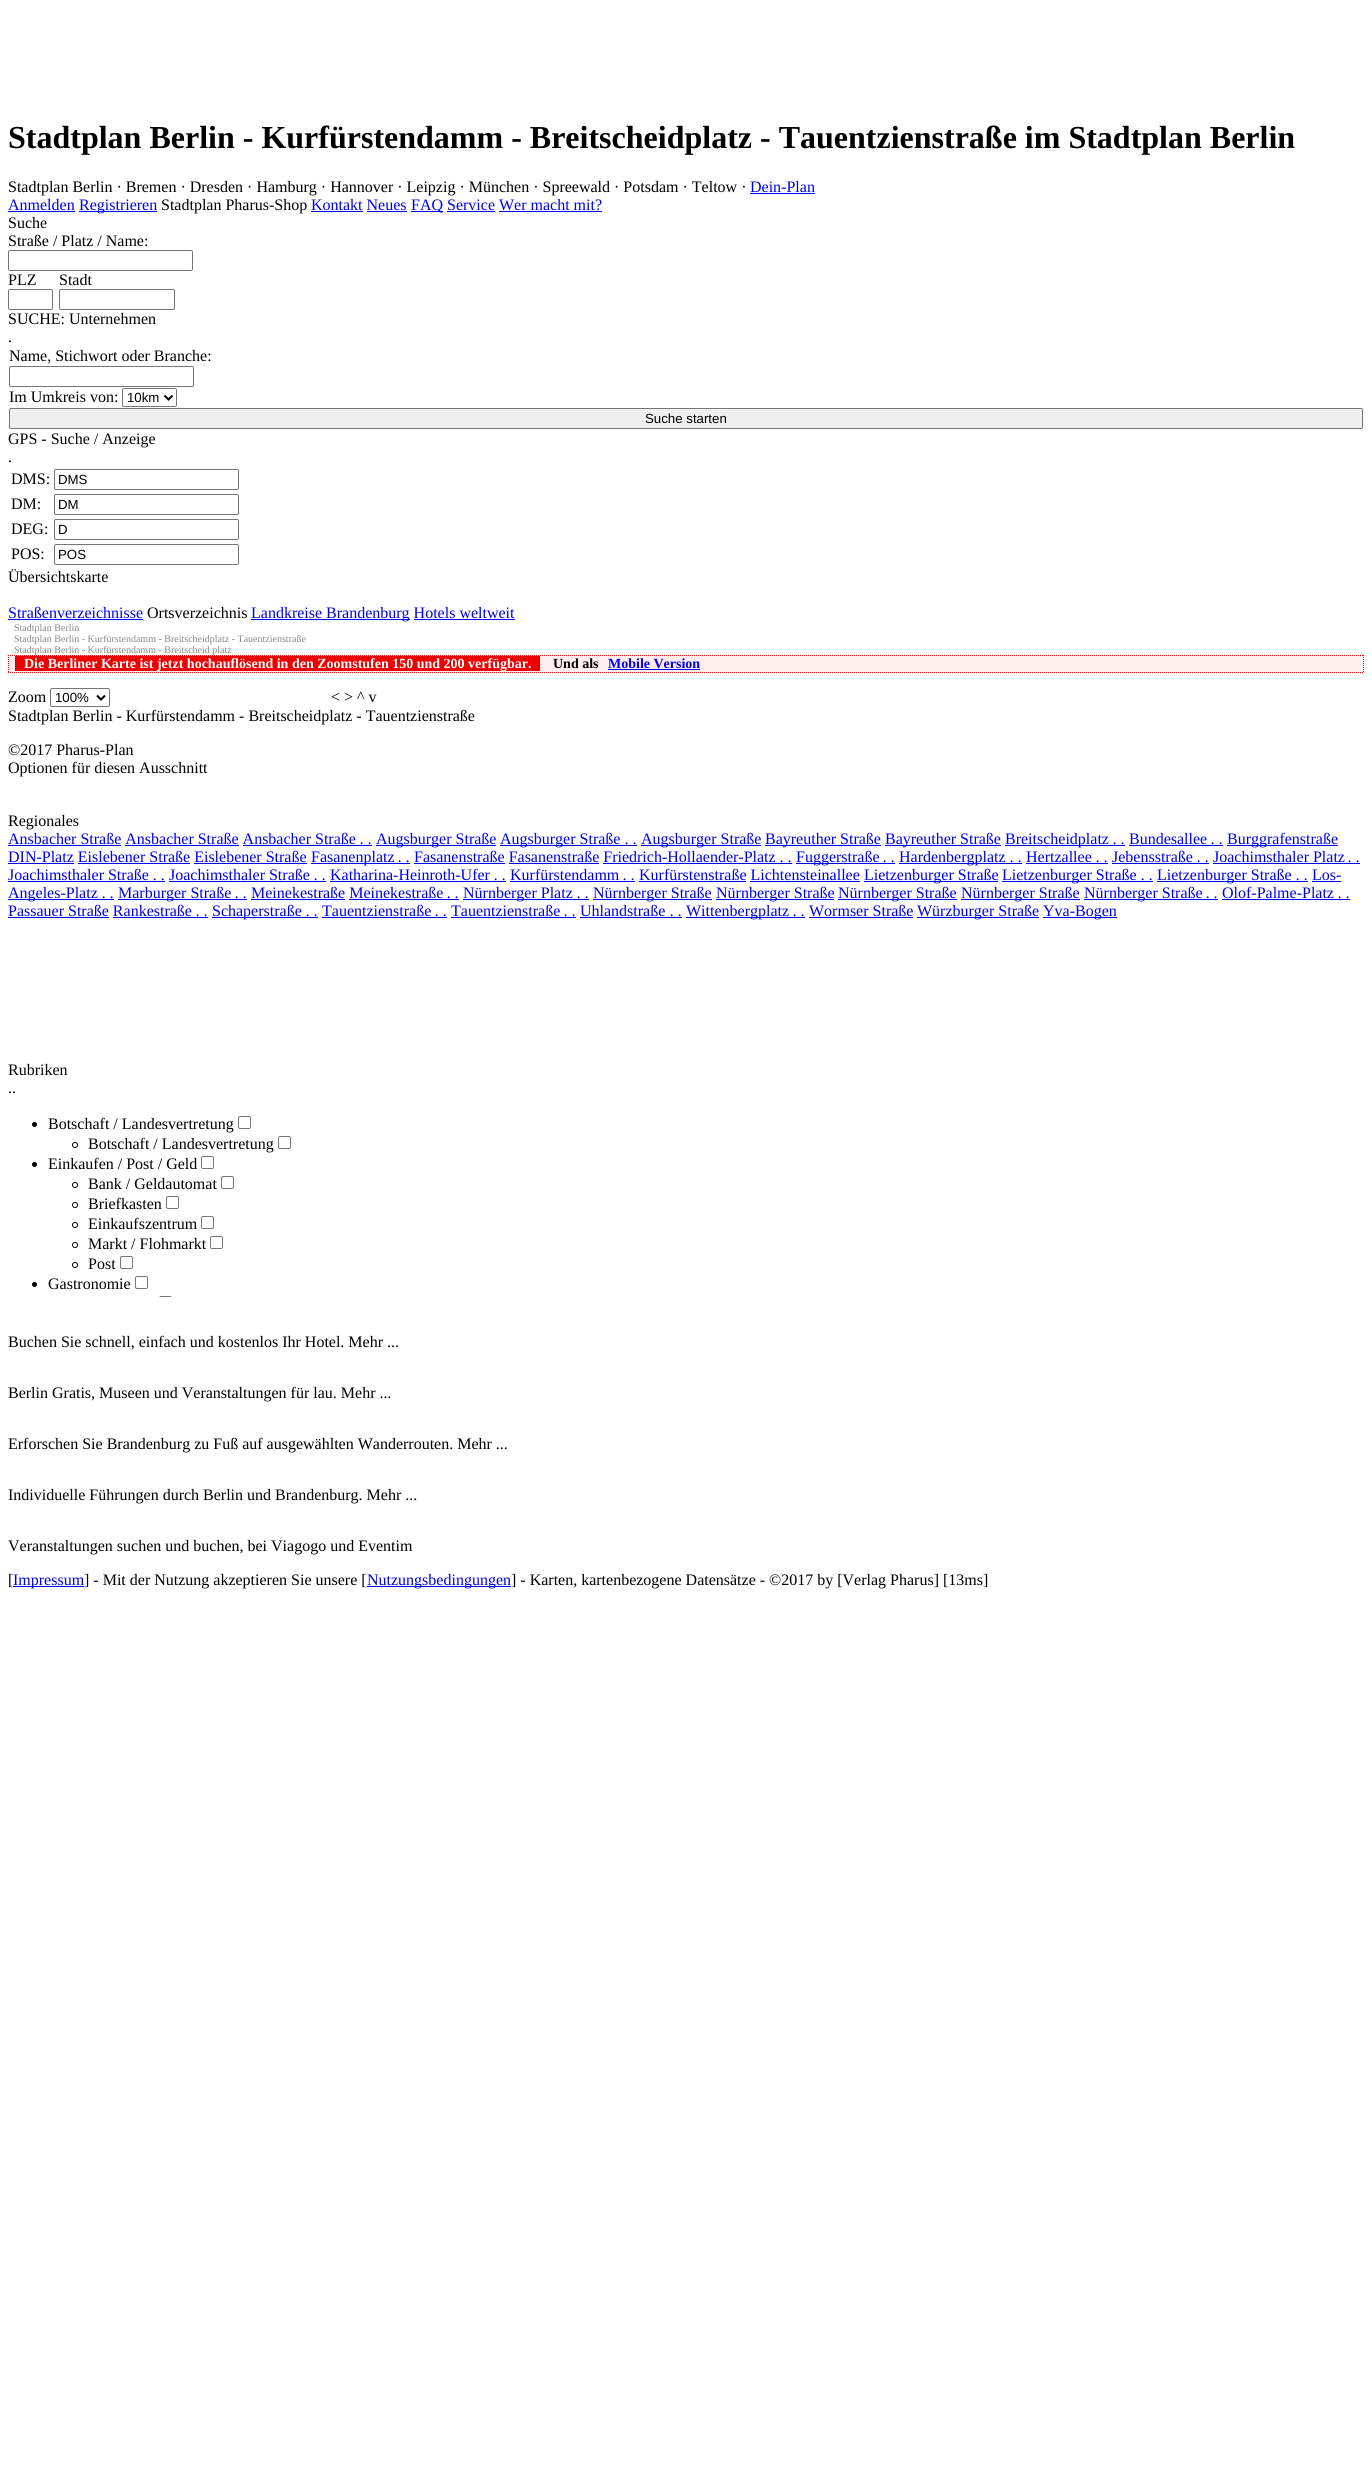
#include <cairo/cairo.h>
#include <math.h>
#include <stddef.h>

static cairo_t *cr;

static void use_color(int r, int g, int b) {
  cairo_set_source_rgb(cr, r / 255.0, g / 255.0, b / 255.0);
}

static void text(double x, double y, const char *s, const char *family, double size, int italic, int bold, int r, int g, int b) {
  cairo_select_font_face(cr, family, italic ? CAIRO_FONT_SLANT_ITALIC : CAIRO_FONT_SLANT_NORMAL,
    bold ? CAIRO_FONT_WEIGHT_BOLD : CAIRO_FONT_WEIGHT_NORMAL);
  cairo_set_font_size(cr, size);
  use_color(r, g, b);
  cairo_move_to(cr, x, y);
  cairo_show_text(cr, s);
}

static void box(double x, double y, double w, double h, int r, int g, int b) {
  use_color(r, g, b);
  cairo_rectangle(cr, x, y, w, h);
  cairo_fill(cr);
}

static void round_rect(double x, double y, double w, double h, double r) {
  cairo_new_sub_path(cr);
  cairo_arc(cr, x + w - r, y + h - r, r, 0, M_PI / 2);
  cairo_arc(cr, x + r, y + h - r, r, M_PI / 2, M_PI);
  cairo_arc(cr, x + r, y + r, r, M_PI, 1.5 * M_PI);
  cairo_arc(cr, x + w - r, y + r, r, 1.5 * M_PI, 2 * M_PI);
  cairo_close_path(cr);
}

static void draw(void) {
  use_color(255, 255, 255);
  cairo_paint(cr);
  box(750, 193, 65, 1, 0, 0, 238);
  box(8, 211, 67, 1, 0, 0, 238);
  box(79, 211, 78, 1, 0, 0, 238);
  box(311, 211, 52, 1, 0, 0, 238);
  box(411, 211, 32, 1, 0, 0, 238);
  box(367, 211, 40, 1, 0, 0, 238);
  box(447, 211, 48, 1, 0, 0, 238);
  box(499, 211, 103, 1, 0, 0, 238);
  round_rect(8.5, 250.5, 184, 20, 1.5);
  use_color(118, 118, 118);
  cairo_set_line_width(cr, 1);
  cairo_stroke(cr);
  round_rect(8.5, 289.5, 44, 20, 1.5);
  cairo_stroke(cr);
  round_rect(59.5, 289.5, 115, 20, 1.5);
  cairo_stroke(cr);
  round_rect(9.5, 366.5, 184, 20, 1.5);
  cairo_stroke(cr);
  round_rect(122.5, 388.5, 54, 18, 1.5);
  cairo_stroke(cr);
  cairo_new_path(cr);
  cairo_move_to(cr, 164.5, 395.5);
  cairo_line_to(cr, 168.5, 399.5);
  cairo_line_to(cr, 172.5, 395.5);
  use_color(0, 0, 0);
  cairo_set_line_width(cr, 2);
  cairo_stroke(cr);
  use_color(239, 239, 239);
  round_rect(9.5, 408.5, 1353, 20, 1.5);
  cairo_fill_preserve(cr);
  use_color(118, 118, 118);
  cairo_set_line_width(cr, 1);
  cairo_stroke(cr);
  round_rect(54.5, 469.5, 184, 20, 1.5);
  cairo_stroke(cr);
  round_rect(54.5, 494.5, 184, 20, 1.5);
  cairo_stroke(cr);
  round_rect(54.5, 519.5, 184, 20, 1.5);
  cairo_stroke(cr);
  round_rect(54.5, 544.5, 184, 20, 1.5);
  cairo_stroke(cr);
  box(8, 619, 135, 1, 0, 0, 238);
  box(251, 619, 159, 1, 0, 0, 238);
  box(414, 619, 101, 1, 0, 0, 238);
  box(8, 655, 1356, 18, 255, 238, 238);
  cairo_new_path(cr);
  cairo_move_to(cr, 8, 655.5);
  cairo_line_to(cr, 1364, 655.5);
  use_color(255, 0, 0);
  cairo_set_dash(cr, (double[]){1, 1}, 2, 0);
  cairo_stroke(cr);
  cairo_new_path(cr);
  cairo_move_to(cr, 1363.5, 655);
  cairo_line_to(cr, 1363.5, 673);
  cairo_stroke(cr);
  cairo_new_path(cr);
  cairo_move_to(cr, 8, 672.5);
  cairo_line_to(cr, 1364, 672.5);
  cairo_stroke(cr);
  cairo_new_path(cr);
  cairo_move_to(cr, 8.5, 655);
  cairo_line_to(cr, 8.5, 673);
  cairo_stroke(cr);
  box(15, 656, 525, 15, 238, 0, 0);
  box(608, 669, 92, 1, 0, 0, 238);
  round_rect(50.5, 688.5, 59, 18, 1.5);
  use_color(118, 118, 118);
  cairo_set_dash(cr, NULL, 0, 0);
  cairo_stroke(cr);
  cairo_new_path(cr);
  cairo_move_to(cr, 97, 695.5);
  cairo_line_to(cr, 101, 699.5);
  cairo_line_to(cr, 105, 695.5);
  use_color(0, 0, 0);
  cairo_set_line_width(cr, 2);
  cairo_stroke(cr);
  box(8, 845, 113, 1, 0, 0, 238);
  box(243, 845, 129, 1, 0, 0, 238);
  box(376, 845, 120, 1, 0, 0, 238);
  box(500, 845, 137, 1, 0, 0, 238);
  box(641, 845, 120, 1, 0, 0, 238);
  box(765, 845, 116, 1, 0, 0, 238);
  box(885, 845, 116, 1, 0, 0, 238);
  box(1005, 845, 120, 1, 0, 0, 238);
  box(1129, 845, 94, 1, 0, 0, 238);
  box(1227, 845, 111, 1, 0, 0, 238);
  box(125, 845, 114, 1, 0, 0, 238);
  box(8, 863, 66, 1, 0, 0, 238);
  box(311, 863, 99, 1, 0, 0, 238);
  box(414, 863, 91, 1, 0, 0, 238);
  box(603, 863, 189, 1, 0, 0, 238);
  box(796, 863, 99, 1, 0, 0, 238);
  box(899, 863, 123, 1, 0, 0, 238);
  box(1026, 863, 82, 1, 0, 0, 238);
  box(1112, 863, 97, 1, 0, 0, 238);
  box(1213, 863, 147, 1, 0, 0, 238);
  box(78, 863, 112, 1, 0, 0, 238);
  box(194, 863, 113, 1, 0, 0, 238);
  box(509, 863, 90, 1, 0, 0, 238);
  box(8, 881, 157, 1, 0, 0, 238);
  box(169, 881, 157, 1, 0, 0, 238);
  box(330, 881, 176, 1, 0, 0, 238);
  box(510, 881, 125, 1, 0, 0, 238);
  box(639, 881, 107, 1, 0, 0, 238);
  box(864, 881, 134, 1, 0, 0, 238);
  box(1002, 881, 151, 1, 0, 0, 238);
  box(1157, 881, 151, 1, 0, 0, 238);
  box(1312, 881, 29, 1, 0, 0, 238);
  box(750, 881, 110, 1, 0, 0, 238);
  box(8, 899, 106, 1, 0, 0, 238);
  box(118, 899, 129, 1, 0, 0, 238);
  box(251, 899, 94, 1, 0, 0, 238);
  box(349, 899, 110, 1, 0, 0, 238);
  box(463, 899, 126, 1, 0, 0, 238);
  box(593, 899, 119, 1, 0, 0, 238);
  box(716, 899, 118, 1, 0, 0, 238);
  box(838, 899, 119, 1, 0, 0, 238);
  box(961, 899, 119, 1, 0, 0, 238);
  box(1084, 899, 134, 1, 0, 0, 238);
  box(1222, 899, 128, 1, 0, 0, 238);
  box(8, 917, 101, 1, 0, 0, 238);
  box(113, 917, 95, 1, 0, 0, 238);
  box(212, 917, 106, 1, 0, 0, 238);
  box(322, 917, 125, 1, 0, 0, 238);
  box(451, 917, 125, 1, 0, 0, 238);
  box(580, 917, 102, 1, 0, 0, 238);
  box(686, 917, 119, 1, 0, 0, 238);
  box(809, 917, 104, 1, 0, 0, 238);
  box(917, 917, 122, 1, 0, 0, 238);
  box(1043, 917, 74, 1, 0, 0, 238);
  use_color(0, 0, 0);
  cairo_arc(cr, 34.5, 1124.5, 2.5, 0, 2 * M_PI);
  cairo_fill(cr);
  round_rect(238.5, 1116.5, 12, 12, 1.5);
  use_color(118, 118, 118);
  cairo_set_line_width(cr, 1);
  cairo_stroke(cr);
  cairo_arc(cr, 75, 1145, 2.5, 0, 2 * M_PI);
  use_color(0, 0, 0);
  cairo_stroke(cr);
  round_rect(278.5, 1136.5, 12, 12, 1.5);
  use_color(118, 118, 118);
  cairo_stroke(cr);
  use_color(0, 0, 0);
  cairo_arc(cr, 34.5, 1164.5, 2.5, 0, 2 * M_PI);
  cairo_fill(cr);
  round_rect(201.5, 1156.5, 12, 12, 1.5);
  use_color(118, 118, 118);
  cairo_stroke(cr);
  cairo_arc(cr, 75, 1185, 2.5, 0, 2 * M_PI);
  use_color(0, 0, 0);
  cairo_stroke(cr);
  round_rect(221.5, 1176.5, 12, 12, 1.5);
  use_color(118, 118, 118);
  cairo_stroke(cr);
  cairo_arc(cr, 75, 1205, 2.5, 0, 2 * M_PI);
  use_color(0, 0, 0);
  cairo_stroke(cr);
  round_rect(166.5, 1196.5, 12, 12, 1.5);
  use_color(118, 118, 118);
  cairo_stroke(cr);
  cairo_arc(cr, 75, 1225, 2.5, 0, 2 * M_PI);
  use_color(0, 0, 0);
  cairo_stroke(cr);
  round_rect(201.5, 1216.5, 12, 12, 1.5);
  use_color(118, 118, 118);
  cairo_stroke(cr);
  cairo_arc(cr, 75, 1245, 2.5, 0, 2 * M_PI);
  use_color(0, 0, 0);
  cairo_stroke(cr);
  round_rect(210.5, 1236.5, 12, 12, 1.5);
  use_color(118, 118, 118);
  cairo_stroke(cr);
  cairo_arc(cr, 75, 1265, 2.5, 0, 2 * M_PI);
  use_color(0, 0, 0);
  cairo_stroke(cr);
  round_rect(120.5, 1256.5, 12, 12, 1.5);
  use_color(118, 118, 118);
  cairo_stroke(cr);
  use_color(0, 0, 0);
  cairo_arc(cr, 34.5, 1284.5, 2.5, 0, 2 * M_PI);
  cairo_fill(cr);
  round_rect(135.5, 1276.5, 12, 12, 1.5);
  use_color(118, 118, 118);
  cairo_stroke(cr);
  cairo_save(cr);
  cairo_rectangle(cr, 8, 1097, 1356, 200);
  cairo_clip(cr);
  round_rect(159.5, 1296.5, 12, 12, 1.5);
  cairo_stroke(cr);
  cairo_restore(cr);
  box(13, 1586, 71, 1, 0, 0, 238);
  box(367, 1586, 144, 1, 0, 0, 238);
  text(8, 148, "Stadtplan Berlin - Kurfürstendamm - Breitscheidplatz - Tauentzienstraße im Stadtplan Berlin", "Liberation Serif", 32, 0, 1, 0, 0, 0);
  text(8, 192, "Stadtplan Berlin · Bremen · Dresden · Hamburg · Hannover · Leipzig · München · Spreewald · Potsdam · Teltow ·", "Liberation Serif", 16, 0, 0, 0, 0, 0);
  text(750, 192, "Dein-Plan", "Liberation Serif", 16, 0, 0, 0, 0, 238);
  text(8, 210, "Anmelden", "Liberation Serif", 16, 0, 0, 0, 0, 238);
  text(79, 210, "Registrieren", "Liberation Serif", 16, 0, 0, 0, 0, 238);
  text(161, 210, "Stadtplan Pharus-Shop", "Liberation Serif", 16, 0, 0, 0, 0, 0);
  text(311, 210, "Kontakt Neues", "Liberation Serif", 16, 0, 0, 0, 0, 238);
  text(411, 210, "FAQ Service Wer macht mit?", "Liberation Serif", 16, 0, 0, 0, 0, 238);
  text(8, 228, "Suche", "Liberation Serif", 16, 0, 0, 0, 0, 0);
  text(8, 246, "Straße / Platz / Name:", "Liberation Serif", 16, 0, 0, 0, 0, 0);
  text(8, 285, "PLZ", "Liberation Serif", 16, 0, 0, 0, 0, 0);
  text(59, 285, "Stadt", "Liberation Serif", 16, 0, 0, 0, 0, 0);
  text(8, 324, "SUCHE: Unternehmen", "Liberation Serif", 16, 0, 0, 0, 0, 0);
  text(8, 342, ".", "Liberation Serif", 16, 0, 0, 0, 0, 0);
  text(9, 361, "Name, Stichwort oder Branche:", "Liberation Serif", 16, 0, 0, 0, 0, 0);
  text(9, 402, "Im Umkreis von:", "Liberation Serif", 16, 0, 0, 0, 0, 0);
  text(127, 402, "10km", "Liberation Sans", 13.25, 0, 0, 0, 0, 0);
  text(645, 423, "Suche starten", "Liberation Sans", 13.25, 0, 0, 0, 0, 0);
  text(8, 444, "GPS - Suche / Anzeige", "Liberation Serif", 16, 0, 0, 0, 0, 0);
  text(8, 462, ".", "Liberation Serif", 16, 0, 0, 0, 0, 0);
  text(11, 484, "DMS:", "Liberation Serif", 16, 0, 0, 0, 0, 0);
  text(58, 484, "DMS", "Liberation Sans", 13.25, 0, 0, 0, 0, 0);
  text(11, 509, "DM:", "Liberation Serif", 16, 0, 0, 0, 0, 0);
  text(58, 509, "DM", "Liberation Sans", 13.25, 0, 0, 0, 0, 0);
  text(11, 534, "DEG:", "Liberation Serif", 16, 0, 0, 0, 0, 0);
  text(58, 534, "D", "Liberation Sans", 13.25, 0, 0, 0, 0, 0);
  text(11, 559, "POS:", "Liberation Serif", 16, 0, 0, 0, 0, 0);
  text(58, 559, "POS", "Liberation Sans", 13.25, 0, 0, 0, 0, 0);
  text(8, 582, "Übersichtskarte", "Liberation Serif", 16, 0, 0, 0, 0, 0);
  text(8, 618, "Straßenverzeichnisse", "Liberation Serif", 16, 0, 0, 0, 0, 238);
  text(147, 618, "Ortsverzeichnis", "Liberation Serif", 16, 0, 0, 0, 0, 0);
  text(251, 618, "Landkreise Brandenburg Hotels weltweit", "Liberation Serif", 16, 0, 0, 0, 0, 238);
  text(14, 631, "Stadtplan Berlin", "Liberation Serif", 10, 0, 0, 136, 136, 136);
  text(14, 642, "Stadtplan Berlin - Kurfürstendamm - Breitscheidplatz - Tauentzienstraße", "Liberation Serif", 10, 0, 0, 136, 136, 136);
  text(14, 653, "Stadtplan Berlin - Kurfürstendamm - Breitscheid platz", "Liberation Serif", 10, 0, 0, 136, 136, 136);
  text(24, 668, "Die Berliner Karte ist jetzt hochauflösend in den Zoomstufen 150 und 200 verfügbar.", "Liberation Serif", 14, 0, 1, 255, 255, 255);
  text(553, 668, "Und als", "Liberation Serif", 14, 0, 1, 0, 0, 0);
  text(608, 668, "Mobile Version", "Liberation Serif", 14, 0, 1, 0, 0, 238);
  text(8, 702, "Zoom", "Liberation Serif", 16, 0, 0, 0, 0, 0);
  text(55, 702, "100%", "Liberation Sans", 13.25, 0, 0, 0, 0, 0);
  text(331, 702, "< > ^ v", "Liberation Serif", 16, 0, 0, 0, 0, 0);
  text(8, 721, "Stadtplan Berlin - Kurfürstendamm - Breitscheidplatz - Tauentzienstraße", "Liberation Serif", 16, 0, 0, 0, 0, 0);
  text(8, 755, "©2017 Pharus-Plan", "Liberation Serif", 16, 0, 0, 0, 0, 0);
  text(8, 773, "Optionen für diesen Ausschnitt", "Liberation Serif", 16, 0, 0, 0, 0, 0);
  text(8, 826, "Regionales", "Liberation Serif", 16, 0, 0, 0, 0, 0);
  text(8, 844, "Ansbacher Straße Ansbacher Straße Ansbacher Straße", "Liberation Serif", 16, 0, 0, 0, 0, 238);
  text(360, 844, ". .", "Liberation Serif", 16, 1, 0, 0, 0, 238);
  text(376, 844, "Augsburger Straße", "Liberation Serif", 16, 0, 0, 0, 0, 238);
  text(500, 844, "Augsburger Straße", "Liberation Serif", 16, 0, 0, 0, 0, 238);
  text(625, 844, ". .", "Liberation Serif", 16, 1, 0, 0, 0, 238);
  text(641, 844, "Augsburger Straße", "Liberation Serif", 16, 0, 0, 0, 0, 238);
  text(765, 844, "Bayreuther Straße", "Liberation Serif", 16, 0, 0, 0, 0, 238);
  text(885, 844, "Bayreuther Straße", "Liberation Serif", 16, 0, 0, 0, 0, 238);
  text(1005, 844, "Breitscheidplatz", "Liberation Serif", 16, 0, 0, 0, 0, 238);
  text(1113, 844, ". .", "Liberation Serif", 16, 1, 0, 0, 0, 238);
  text(1129, 844, "Bundesallee", "Liberation Serif", 16, 0, 0, 0, 0, 238);
  text(1211, 844, ". .", "Liberation Serif", 16, 1, 0, 0, 0, 238);
  text(1227, 844, "Burggrafenstraße", "Liberation Serif", 16, 0, 0, 0, 0, 238);
  text(8, 862, "DIN-Platz Eislebener Straße Eislebener Straße", "Liberation Serif", 16, 0, 0, 0, 0, 238);
  text(311, 862, "Fasanenplatz", "Liberation Serif", 16, 0, 0, 0, 0, 238);
  text(398, 862, ". .", "Liberation Serif", 16, 1, 0, 0, 0, 238);
  text(414, 862, "Fasanenstraße Fasanenstraße Friedrich-Hollaender-Platz", "Liberation Serif", 16, 0, 0, 0, 0, 238);
  text(780, 862, ". .", "Liberation Serif", 16, 1, 0, 0, 0, 238);
  text(796, 862, "Fuggerstraße", "Liberation Serif", 16, 0, 0, 0, 0, 238);
  text(883, 862, ". .", "Liberation Serif", 16, 1, 0, 0, 0, 238);
  text(899, 862, "Hardenbergplatz", "Liberation Serif", 16, 0, 0, 0, 0, 238);
  text(1010, 862, ". .", "Liberation Serif", 16, 1, 0, 0, 0, 238);
  text(1026, 862, "Hertzallee", "Liberation Serif", 16, 0, 0, 0, 0, 238);
  text(1096, 862, ". .", "Liberation Serif", 16, 1, 0, 0, 0, 238);
  text(1112, 862, "Jebensstraße", "Liberation Serif", 16, 0, 0, 0, 0, 238);
  text(1197, 862, ". .", "Liberation Serif", 16, 1, 0, 0, 0, 238);
  text(1213, 862, "Joachimsthaler Platz", "Liberation Serif", 16, 0, 0, 0, 0, 238);
  text(1348, 862, ". .", "Liberation Serif", 16, 1, 0, 0, 0, 238);
  text(8, 880, "Joachimsthaler Straße", "Liberation Serif", 16, 0, 0, 0, 0, 238);
  text(153, 880, ". .", "Liberation Serif", 16, 1, 0, 0, 0, 238);
  text(169, 880, "Joachimsthaler Straße", "Liberation Serif", 16, 0, 0, 0, 0, 238);
  text(314, 880, ". .", "Liberation Serif", 16, 1, 0, 0, 0, 238);
  text(330, 880, "Katharina-Heinroth-Ufer", "Liberation Serif", 16, 0, 0, 0, 0, 238);
  text(494, 880, ". .", "Liberation Serif", 16, 1, 0, 0, 0, 238);
  text(510, 880, "Kurfürstendamm", "Liberation Serif", 16, 0, 0, 0, 0, 238);
  text(623, 880, ". .", "Liberation Serif", 16, 1, 0, 0, 0, 238);
  text(639, 880, "Kurfürstenstraße Lichtensteinallee", "Liberation Serif", 16, 0, 0, 0, 0, 238);
  text(864, 880, "Lietzenburger Straße", "Liberation Serif", 16, 0, 0, 0, 0, 238);
  text(1002, 880, "Lietzenburger Straße", "Liberation Serif", 16, 0, 0, 0, 0, 238);
  text(1141, 880, ". .", "Liberation Serif", 16, 1, 0, 0, 0, 238);
  text(1157, 880, "Lietzenburger Straße", "Liberation Serif", 16, 0, 0, 0, 0, 238);
  text(1296, 880, ". .", "Liberation Serif", 16, 1, 0, 0, 0, 238);
  text(1312, 880, "Los-", "Liberation Serif", 16, 0, 0, 0, 0, 238);
  text(8, 898, "Angeles-Platz", "Liberation Serif", 16, 0, 0, 0, 0, 238);
  text(102, 898, ". .", "Liberation Serif", 16, 1, 0, 0, 0, 238);
  text(118, 898, "Marburger Straße", "Liberation Serif", 16, 0, 0, 0, 0, 238);
  text(235, 898, ". .", "Liberation Serif", 16, 1, 0, 0, 0, 238);
  text(251, 898, "Meinekestraße Meinekestraße", "Liberation Serif", 16, 0, 0, 0, 0, 238);
  text(447, 898, ". .", "Liberation Serif", 16, 1, 0, 0, 0, 238);
  text(463, 898, "Nürnberger Platz", "Liberation Serif", 16, 0, 0, 0, 0, 238);
  text(577, 898, ". .", "Liberation Serif", 16, 1, 0, 0, 0, 238);
  text(593, 898, "Nürnberger Straße", "Liberation Serif", 16, 0, 0, 0, 0, 238);
  text(716, 898, "Nürnberger Straße", "Liberation Serif", 16, 0, 0, 0, 0, 238);
  text(838, 898, "Nürnberger Straße", "Liberation Serif", 16, 0, 0, 0, 0, 238);
  text(961, 898, "Nürnberger Straße", "Liberation Serif", 16, 0, 0, 0, 0, 238);
  text(1084, 898, "Nürnberger Straße", "Liberation Serif", 16, 0, 0, 0, 0, 238);
  text(1206, 898, ". .", "Liberation Serif", 16, 1, 0, 0, 0, 238);
  text(1222, 898, "Olof-Palme-Platz", "Liberation Serif", 16, 0, 0, 0, 0, 238);
  text(1338, 898, ". .", "Liberation Serif", 16, 1, 0, 0, 0, 238);
  text(8, 916, "Passauer Straße Rankestraße", "Liberation Serif", 16, 0, 0, 0, 0, 238);
  text(196, 916, ". .", "Liberation Serif", 16, 1, 0, 0, 0, 238);
  text(212, 916, "Schaperstraße", "Liberation Serif", 16, 0, 0, 0, 0, 238);
  text(306, 916, ". .", "Liberation Serif", 16, 1, 0, 0, 0, 238);
  text(322, 916, "Tauentzienstraße", "Liberation Serif", 16, 0, 0, 0, 0, 238);
  text(435, 916, ". .", "Liberation Serif", 16, 1, 0, 0, 0, 238);
  text(451, 916, "Tauentzienstraße", "Liberation Serif", 16, 0, 0, 0, 0, 238);
  text(564, 916, ". .", "Liberation Serif", 16, 1, 0, 0, 0, 238);
  text(580, 916, "Uhlandstraße", "Liberation Serif", 16, 0, 0, 0, 0, 238);
  text(670, 916, ". .", "Liberation Serif", 16, 1, 0, 0, 0, 238);
  text(686, 916, "Wittenbergplatz", "Liberation Serif", 16, 0, 0, 0, 0, 238);
  text(793, 916, ". .", "Liberation Serif", 16, 1, 0, 0, 0, 238);
  text(809, 916, "Wormser Straße", "Liberation Serif", 16, 0, 0, 0, 0, 238);
  text(917, 916, "Würzburger Straße", "Liberation Serif", 16, 0, 0, 0, 0, 238);
  text(1043, 916, "Yva-Bogen", "Liberation Serif", 16, 0, 0, 0, 0, 238);
  text(8, 1075, "Rubriken", "Liberation Serif", 16, 0, 0, 0, 0, 0);
  text(8, 1093, "..", "Liberation Serif", 16, 0, 0, 0, 0, 0);
  text(48, 1129, "Botschaft / Landesvertretung", "Liberation Serif", 16, 0, 0, 0, 0, 0);
  text(88, 1149, "Botschaft / Landesvertretung", "Liberation Serif", 16, 0, 0, 0, 0, 0);
  text(48, 1169, "Einkaufen / Post / Geld", "Liberation Serif", 16, 0, 0, 0, 0, 0);
  text(88, 1189, "Bank / Geldautomat", "Liberation Serif", 16, 0, 0, 0, 0, 0);
  text(88, 1209, "Briefkasten", "Liberation Serif", 16, 0, 0, 0, 0, 0);
  text(88, 1229, "Einkaufszentrum", "Liberation Serif", 16, 0, 0, 0, 0, 0);
  text(88, 1249, "Markt / Flohmarkt", "Liberation Serif", 16, 0, 0, 0, 0, 0);
  text(88, 1269, "Post", "Liberation Serif", 16, 0, 0, 0, 0, 0);
  text(48, 1289, "Gastronomie", "Liberation Serif", 16, 0, 0, 0, 0, 0);
  text(8, 1347, "Buchen Sie schnell, einfach und kostenlos Ihr Hotel. Mehr ...", "Liberation Serif", 16, 0, 0, 0, 0, 0);
  text(8, 1398, "Berlin Gratis, Museen und Veranstaltungen für lau. Mehr ...", "Liberation Serif", 16, 0, 0, 0, 0, 0);
  text(8, 1449, "Erforschen Sie Brandenburg zu Fuß auf ausgewählten Wanderrouten. Mehr ...", "Liberation Serif", 16, 0, 0, 0, 0, 0);
  text(8, 1500, "Individuelle Führungen durch Berlin und Brandenburg. Mehr ...", "Liberation Serif", 16, 0, 0, 0, 0, 0);
  text(8, 1551, "Veranstaltungen suchen und buchen, bei Viagogo und Eventim", "Liberation Serif", 16, 0, 0, 0, 0, 0);
  text(8, 1585, "[", "Liberation Serif", 16, 0, 0, 0, 0, 0);
  text(13, 1585, "Impressum", "Liberation Serif", 16, 0, 0, 0, 0, 238);
  text(84, 1585, "] - Mit der Nutzung akzeptieren Sie unsere [", "Liberation Serif", 16, 0, 0, 0, 0, 0);
  text(367, 1585, "Nutzungsbedingungen", "Liberation Serif", 16, 0, 0, 0, 0, 238);
  text(511, 1585, "] - Karten, kartenbezogene Datensätze - ©2017 by [Verlag Pharus] [13ms]", "Liberation Serif", 16, 0, 0, 0, 0, 0);
}

int main(void) {
  cairo_surface_t *surface = cairo_image_surface_create(CAIRO_FORMAT_RGB24, 1372, 2469);
  cr = cairo_create(surface);
  cairo_font_options_t *options = cairo_font_options_create();
  cairo_font_options_set_hint_metrics(options, CAIRO_HINT_METRICS_OFF);
  cairo_font_options_set_hint_style(options, CAIRO_HINT_STYLE_NONE);
  cairo_set_font_options(cr, options);
  cairo_set_miter_limit(cr, 4);
  draw();
  cairo_surface_write_to_png(surface, "out.png");
  cairo_font_options_destroy(options);
  cairo_destroy(cr);
  cairo_surface_destroy(surface);
  return 0;
}
